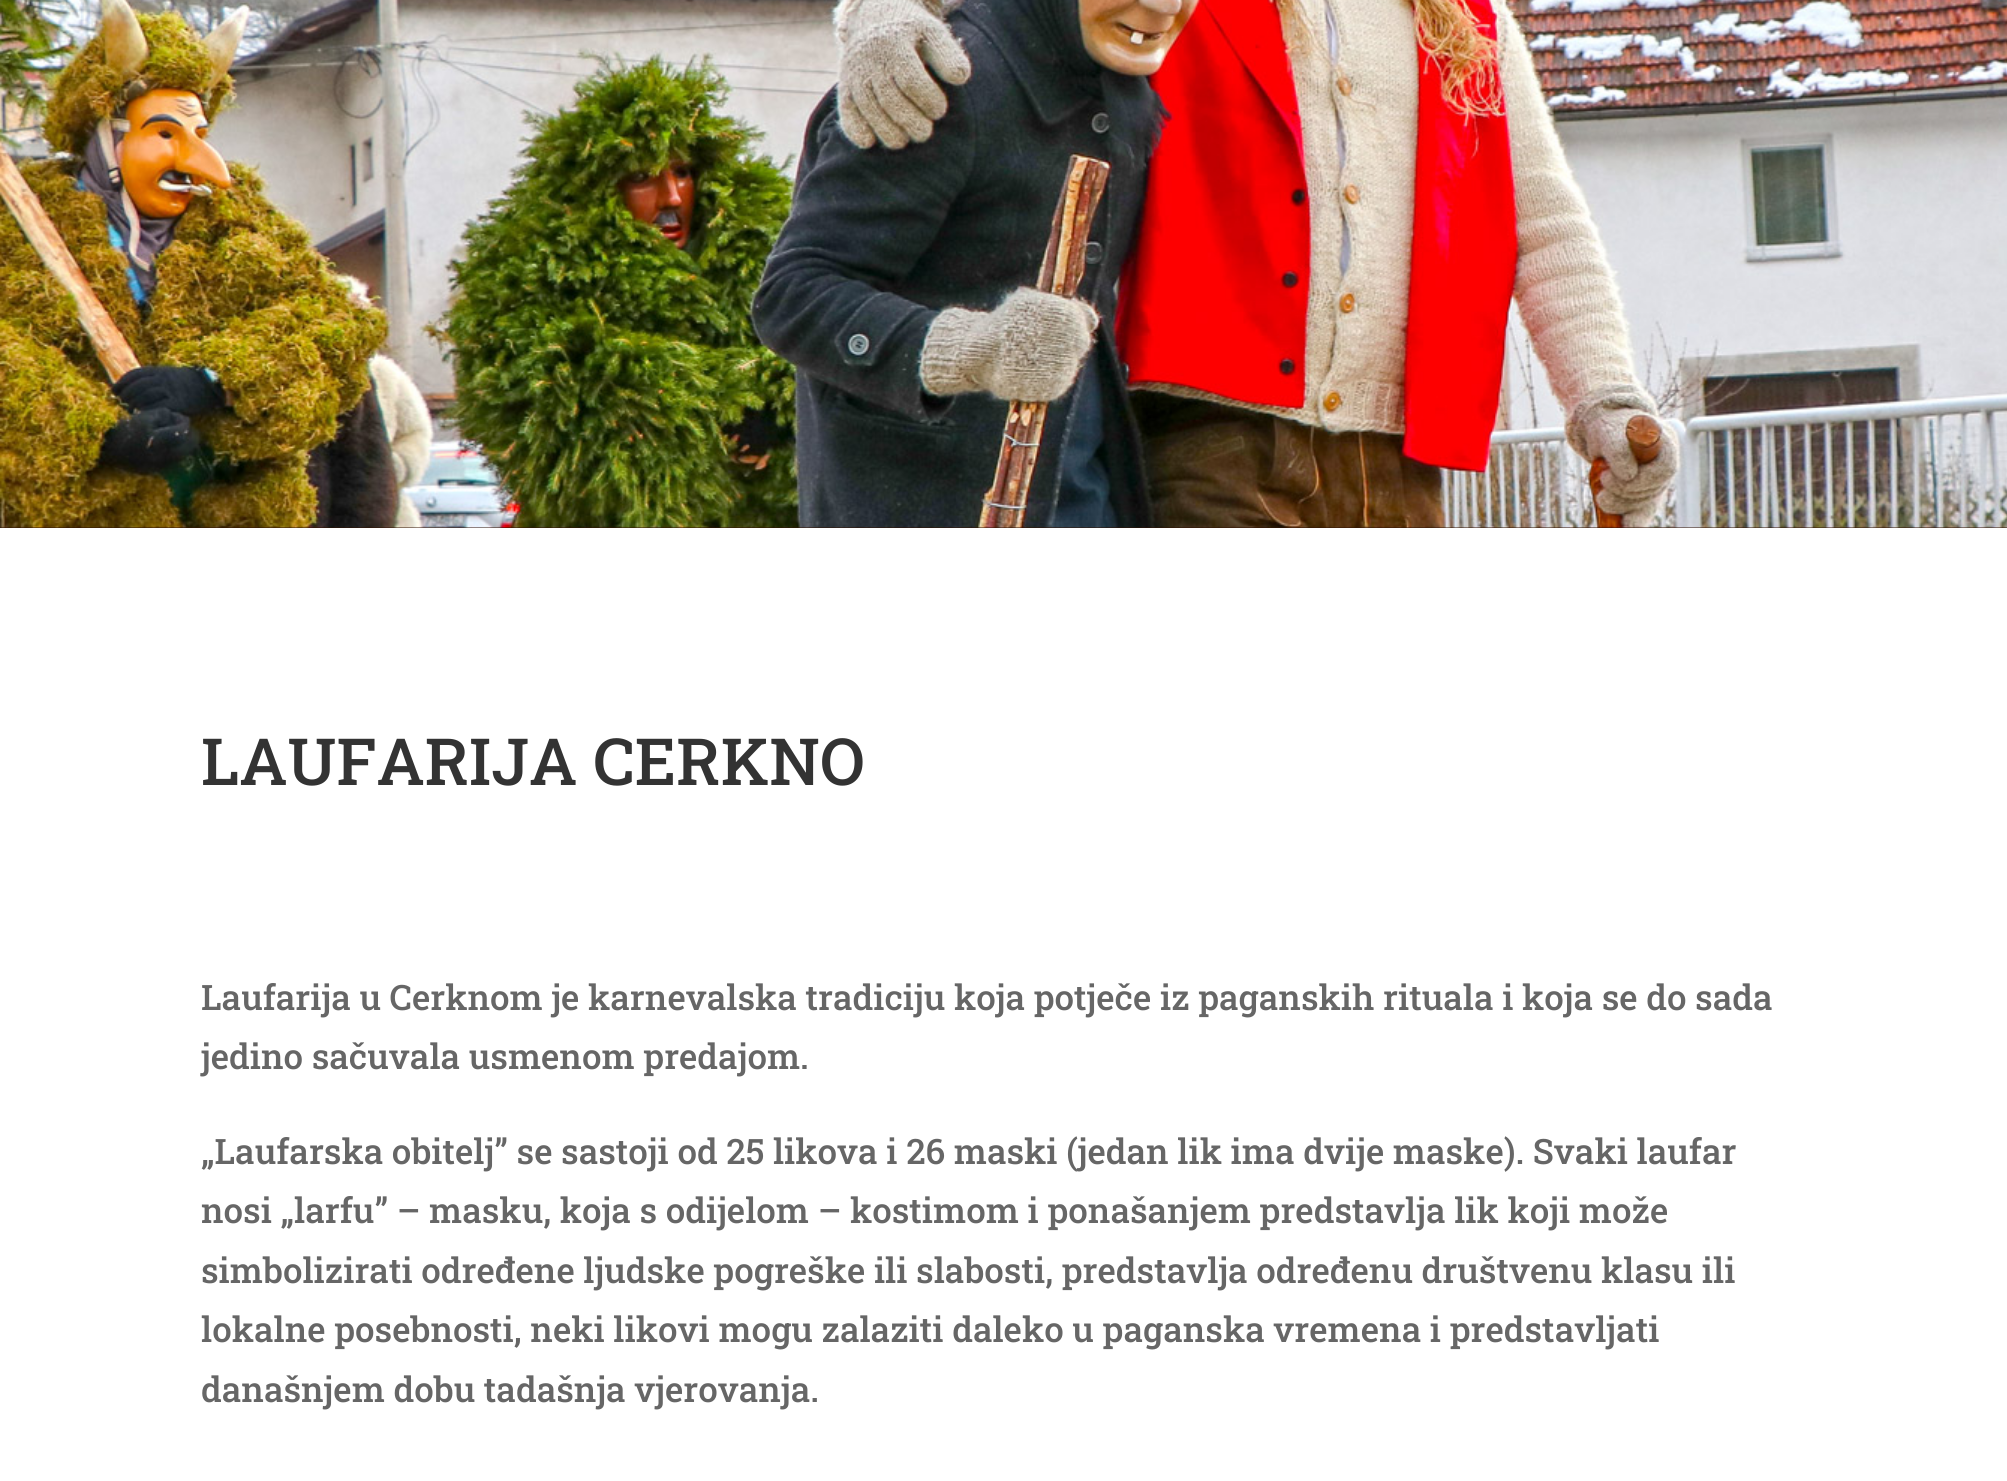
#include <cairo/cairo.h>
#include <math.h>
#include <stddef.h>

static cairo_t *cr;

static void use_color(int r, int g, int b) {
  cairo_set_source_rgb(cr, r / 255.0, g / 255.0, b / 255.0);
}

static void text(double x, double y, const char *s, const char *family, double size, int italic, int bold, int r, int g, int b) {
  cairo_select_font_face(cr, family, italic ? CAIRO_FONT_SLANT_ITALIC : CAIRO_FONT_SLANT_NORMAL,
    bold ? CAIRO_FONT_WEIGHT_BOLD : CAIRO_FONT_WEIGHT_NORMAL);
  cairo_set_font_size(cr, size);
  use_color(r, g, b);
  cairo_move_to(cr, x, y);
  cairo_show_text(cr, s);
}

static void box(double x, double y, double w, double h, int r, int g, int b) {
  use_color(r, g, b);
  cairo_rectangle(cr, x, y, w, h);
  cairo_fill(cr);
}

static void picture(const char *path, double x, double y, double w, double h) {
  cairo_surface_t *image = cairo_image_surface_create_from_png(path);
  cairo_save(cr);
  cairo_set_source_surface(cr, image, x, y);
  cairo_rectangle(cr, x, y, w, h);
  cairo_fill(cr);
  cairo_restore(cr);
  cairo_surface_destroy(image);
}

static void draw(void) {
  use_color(255, 255, 255);
  cairo_paint(cr);
  box(0, 527, 2007, 1, 51, 19, 2);
  picture("img_01.png", 0, 0, 2007, 528);
  text(201, 785, "LAUFARIJA CERKNO", "Roboto Slab Medium", 65, 0, 0, 51, 51, 51);
  text(201, 1010, "Laufarija u Cerknom je karnevalska tradiciju koja potječe iz paganskih rituala i koja se do sada", "Roboto Slab Medium", 35, 0, 0, 102, 102, 102);
  text(201, 1069, "jedino sačuvala usmenom predajom.", "Roboto Slab Medium", 35, 0, 0, 102, 102, 102);
  text(201, 1164, "„Laufarska obitelj” se sastoji od 25 likova i 26 maski (jedan lik ima dvije maske). Svaki laufar", "Roboto Slab Medium", 35, 0, 0, 102, 102, 102);
  text(201, 1223, "nosi „larfu” – masku, koja s odijelom – kostimom i ponašanjem predstavlja lik koji može", "Roboto Slab Medium", 35, 0, 0, 102, 102, 102);
  text(201, 1283, "simbolizirati određene ljudske pogreške ili slabosti, predstavlja određenu društvenu klasu ili", "Roboto Slab Medium", 35, 0, 0, 102, 102, 102);
  text(201, 1342, "lokalne posebnosti, neki likovi mogu zalaziti daleko u paganska vremena i predstavljati", "Roboto Slab Medium", 35, 0, 0, 102, 102, 102);
  text(201, 1402, "današnjem dobu tadašnja vjerovanja.", "Roboto Slab Medium", 35, 0, 0, 102, 102, 102);
}

int main(void) {
  cairo_surface_t *surface = cairo_image_surface_create(CAIRO_FORMAT_RGB24, 2007, 1481);
  cr = cairo_create(surface);
  cairo_font_options_t *options = cairo_font_options_create();
  cairo_font_options_set_hint_metrics(options, CAIRO_HINT_METRICS_OFF);
  cairo_font_options_set_hint_style(options, CAIRO_HINT_STYLE_NONE);
  cairo_set_font_options(cr, options);
  cairo_set_miter_limit(cr, 4);
  draw();
  cairo_surface_write_to_png(surface, "out.png");
  cairo_font_options_destroy(options);
  cairo_destroy(cr);
  cairo_surface_destroy(surface);
  return 0;
}
